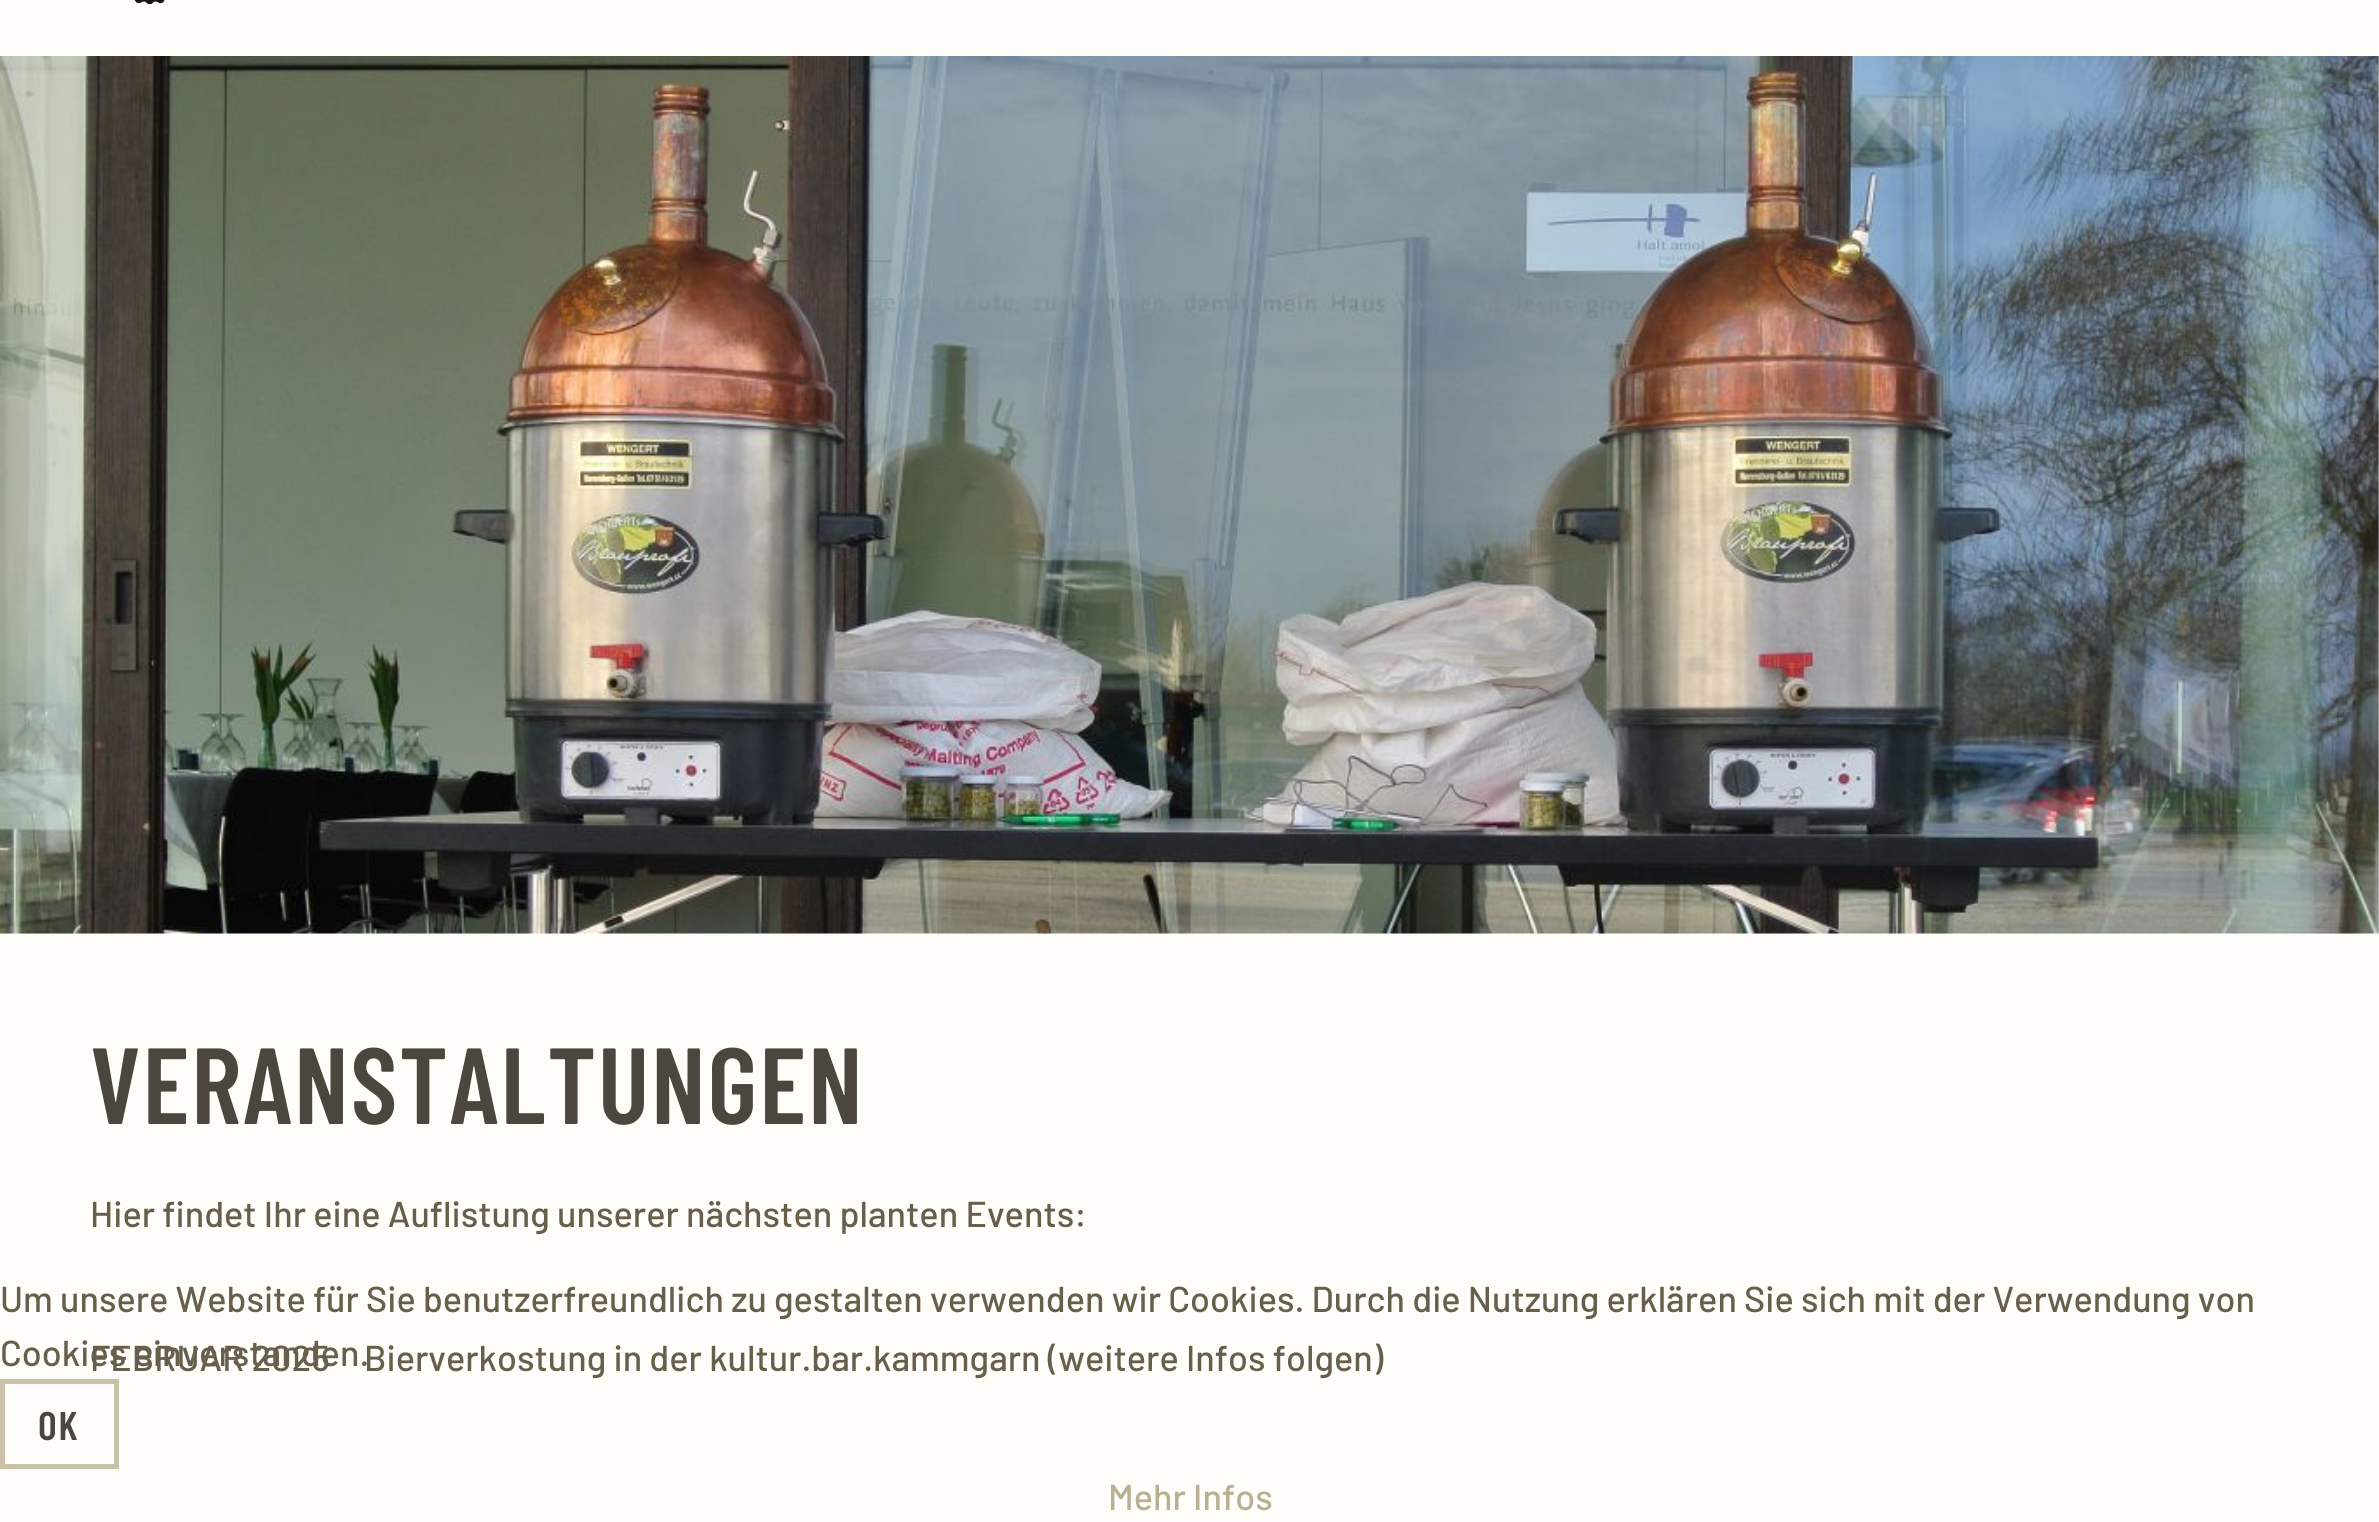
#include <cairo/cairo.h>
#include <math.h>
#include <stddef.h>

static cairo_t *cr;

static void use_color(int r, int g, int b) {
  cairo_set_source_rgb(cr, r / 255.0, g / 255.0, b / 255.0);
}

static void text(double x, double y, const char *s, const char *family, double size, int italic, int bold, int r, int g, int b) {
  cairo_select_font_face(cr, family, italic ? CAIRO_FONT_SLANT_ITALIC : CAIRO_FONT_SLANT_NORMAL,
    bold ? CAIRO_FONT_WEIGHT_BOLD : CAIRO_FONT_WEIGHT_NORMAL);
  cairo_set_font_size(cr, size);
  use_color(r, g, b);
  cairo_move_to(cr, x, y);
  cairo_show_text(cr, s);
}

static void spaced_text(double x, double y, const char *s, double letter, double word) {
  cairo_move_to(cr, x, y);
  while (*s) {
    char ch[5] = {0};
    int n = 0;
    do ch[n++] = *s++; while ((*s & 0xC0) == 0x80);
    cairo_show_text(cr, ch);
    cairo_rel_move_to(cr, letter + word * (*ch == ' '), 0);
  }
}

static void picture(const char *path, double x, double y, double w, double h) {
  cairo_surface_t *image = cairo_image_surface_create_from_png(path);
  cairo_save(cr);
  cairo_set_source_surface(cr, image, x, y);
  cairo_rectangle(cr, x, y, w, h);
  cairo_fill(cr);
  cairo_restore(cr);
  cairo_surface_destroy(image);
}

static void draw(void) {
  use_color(255, 253, 249);
  cairo_paint(cr);
  picture("img_01.png", 134, 0, 31, 4);
  picture("img_02.png", 0, 56, 2379, 878);
  cairo_rectangle(cr, 2.5, 1381.5, 114, 85);
  use_color(203, 193, 169);
  cairo_set_line_width(cr, 5);
  cairo_stroke(cr);
  cairo_select_font_face(cr, "Barlow Condensed SemiBold", CAIRO_FONT_SLANT_NORMAL, CAIRO_FONT_WEIGHT_NORMAL);
  cairo_set_font_size(cr, 108);
  use_color(75, 70, 62);
  spaced_text(90, 1124, "VERANSTALTUNGEN", 1.75, 0);
  text(90, 1227, "Hier findet Ihr eine Auflistung unserer nächsten planten Events:", "Barlow Medium", 36, 0, 0, 103, 95, 75);
  text(90, 1371, "FEBRUAR 2025", "Barlow Medium", 36, 0, 0, 103, 95, 75);
  text(364, 1371, "Bierverkostung in der kultur.bar.kammgarn (weitere Infos folgen)", "Barlow Medium", 36, 0, 0, 103, 95, 75);
  text(0, 1312, "Um unsere Website für Sie benutzerfreundlich zu gestalten verwenden wir Cookies. Durch die Nutzung erklären Sie sich mit der Verwendung von", "Barlow Medium", 36, 0, 0, 103, 95, 75);
  text(0, 1366, "Cookies einverstanden.", "Barlow Medium", 36, 0, 0, 103, 95, 75);
  cairo_select_font_face(cr, "Barlow Condensed SemiBold", CAIRO_FONT_SLANT_NORMAL, CAIRO_FONT_WEIGHT_NORMAL);
  cairo_set_font_size(cr, 40);
  use_color(75, 70, 62);
  spaced_text(38, 1440, "OK", 1.75, 0);
  text(1108, 1510, "Mehr Infos", "Barlow Medium", 36, 0, 0, 185, 175, 147);
}

int main(void) {
  cairo_surface_t *surface = cairo_image_surface_create(CAIRO_FORMAT_RGB24, 2379, 1522);
  cr = cairo_create(surface);
  cairo_font_options_t *options = cairo_font_options_create();
  cairo_font_options_set_hint_metrics(options, CAIRO_HINT_METRICS_OFF);
  cairo_font_options_set_hint_style(options, CAIRO_HINT_STYLE_NONE);
  cairo_set_font_options(cr, options);
  cairo_set_miter_limit(cr, 4);
  draw();
  cairo_surface_write_to_png(surface, "out.png");
  cairo_font_options_destroy(options);
  cairo_destroy(cr);
  cairo_surface_destroy(surface);
  return 0;
}
